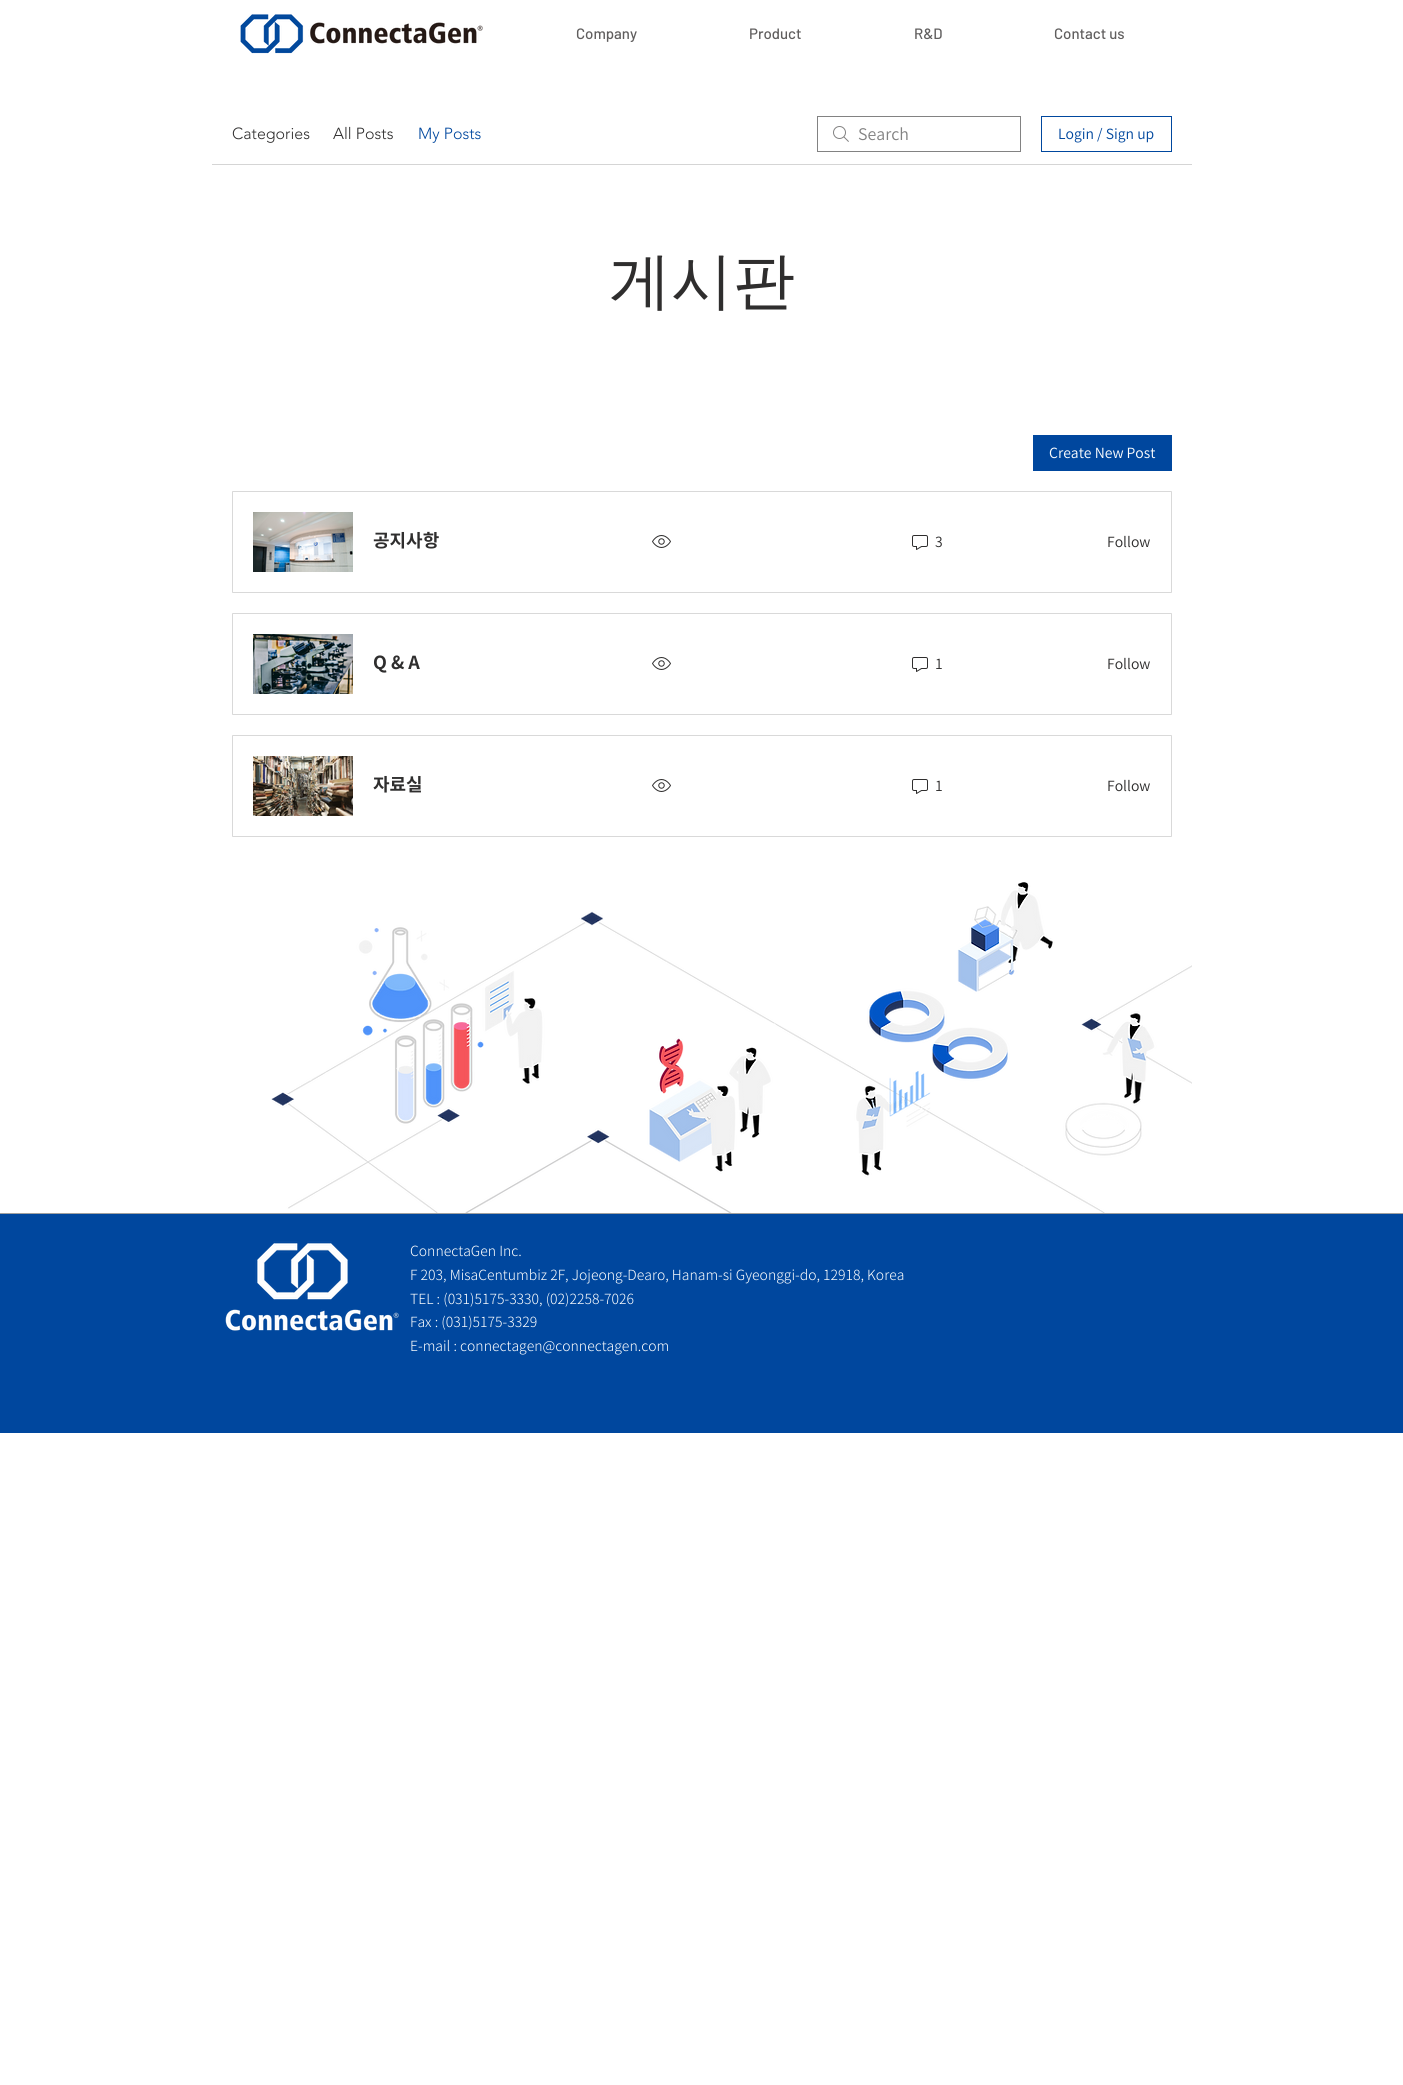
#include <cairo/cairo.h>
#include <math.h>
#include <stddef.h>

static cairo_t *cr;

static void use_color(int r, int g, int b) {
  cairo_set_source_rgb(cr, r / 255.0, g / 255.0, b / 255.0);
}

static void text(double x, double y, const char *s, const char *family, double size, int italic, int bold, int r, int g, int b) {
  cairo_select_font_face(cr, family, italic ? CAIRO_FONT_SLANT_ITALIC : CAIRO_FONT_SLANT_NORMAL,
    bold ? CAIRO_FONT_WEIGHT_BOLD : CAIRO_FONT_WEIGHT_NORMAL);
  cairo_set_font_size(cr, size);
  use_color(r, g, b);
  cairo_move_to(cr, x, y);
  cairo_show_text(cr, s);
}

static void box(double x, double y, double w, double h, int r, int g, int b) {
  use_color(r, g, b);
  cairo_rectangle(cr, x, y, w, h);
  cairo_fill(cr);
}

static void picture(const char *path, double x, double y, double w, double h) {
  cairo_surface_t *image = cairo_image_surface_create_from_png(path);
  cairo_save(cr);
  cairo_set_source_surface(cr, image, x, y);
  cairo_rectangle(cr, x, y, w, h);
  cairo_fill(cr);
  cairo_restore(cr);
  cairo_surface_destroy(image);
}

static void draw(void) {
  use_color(255, 255, 255);
  cairo_paint(cr);
  picture("img_01.png", 240, 14, 243, 40);
  box(212, 164, 980, 1, 213, 213, 213);
  picture("img_02.png", 833, 126, 16, 16);
  cairo_rectangle(cr, 817.5, 116.5, 203, 35);
  use_color(130, 130, 130);
  cairo_set_line_width(cr, 1);
  cairo_stroke(cr);
  cairo_rectangle(cr, 1041.5, 116.5, 130, 35);
  use_color(0, 71, 158);
  cairo_stroke(cr);
  box(1033, 435, 139, 36, 0, 71, 158);
  use_color(217, 217, 217);
  cairo_new_path(cr);
  cairo_move_to(cr, 232, 491);
  cairo_line_to(cr, 353, 491);
  cairo_line_to(cr, 353, 492);
  cairo_line_to(cr, 233, 492);
  cairo_close_path(cr);
  cairo_fill(cr);
  cairo_new_path(cr);
  cairo_move_to(cr, 353, 593);
  cairo_line_to(cr, 232, 593);
  cairo_line_to(cr, 233, 592);
  cairo_line_to(cr, 353, 592);
  cairo_close_path(cr);
  cairo_fill(cr);
  cairo_set_source_rgba(cr, 0.8, 0.8, 0.8, 0.75);
  cairo_new_path(cr);
  cairo_move_to(cr, 232, 593);
  cairo_line_to(cr, 232, 491);
  cairo_line_to(cr, 233, 492);
  cairo_line_to(cr, 233, 592);
  cairo_close_path(cr);
  cairo_fill(cr);
  picture("img_03.png", 253, 512, 100, 60);
  box(353, 491, 742, 1, 217, 217, 217);
  box(353, 592, 742, 1, 217, 217, 217);
  picture("img_04.png", 652, 535, 19, 13);
  picture("img_05.png", 912, 535, 16, 15);
  cairo_new_path(cr);
  cairo_move_to(cr, 1095, 491);
  cairo_line_to(cr, 1172, 491);
  cairo_line_to(cr, 1171, 492);
  cairo_line_to(cr, 1095, 492);
  cairo_close_path(cr);
  cairo_fill(cr);
  cairo_set_source_rgba(cr, 0.8, 0.8, 0.8, 0.75);
  cairo_new_path(cr);
  cairo_move_to(cr, 1172, 491);
  cairo_line_to(cr, 1172, 593);
  cairo_line_to(cr, 1171, 592);
  cairo_line_to(cr, 1171, 492);
  cairo_close_path(cr);
  cairo_fill(cr);
  cairo_new_path(cr);
  cairo_move_to(cr, 1172, 593);
  cairo_line_to(cr, 1095, 593);
  cairo_line_to(cr, 1095, 592);
  cairo_line_to(cr, 1171, 592);
  cairo_close_path(cr);
  cairo_fill(cr);
  use_color(217, 217, 217);
  cairo_new_path(cr);
  cairo_move_to(cr, 232, 613);
  cairo_line_to(cr, 353, 613);
  cairo_line_to(cr, 353, 614);
  cairo_line_to(cr, 233, 614);
  cairo_close_path(cr);
  cairo_fill(cr);
  cairo_new_path(cr);
  cairo_move_to(cr, 353, 715);
  cairo_line_to(cr, 232, 715);
  cairo_line_to(cr, 233, 714);
  cairo_line_to(cr, 353, 714);
  cairo_close_path(cr);
  cairo_fill(cr);
  cairo_set_source_rgba(cr, 0.8, 0.8, 0.8, 0.75);
  cairo_new_path(cr);
  cairo_move_to(cr, 232, 715);
  cairo_line_to(cr, 232, 613);
  cairo_line_to(cr, 233, 614);
  cairo_line_to(cr, 233, 714);
  cairo_close_path(cr);
  cairo_fill(cr);
  picture("img_06.png", 253, 634, 100, 60);
  box(353, 613, 742, 1, 217, 217, 217);
  box(353, 714, 742, 1, 217, 217, 217);
  picture("img_04.png", 652, 657, 19, 13);
  picture("img_05.png", 912, 657, 16, 15);
  cairo_new_path(cr);
  cairo_move_to(cr, 1095, 613);
  cairo_line_to(cr, 1172, 613);
  cairo_line_to(cr, 1171, 614);
  cairo_line_to(cr, 1095, 614);
  cairo_close_path(cr);
  cairo_fill(cr);
  cairo_set_source_rgba(cr, 0.8, 0.8, 0.8, 0.75);
  cairo_new_path(cr);
  cairo_move_to(cr, 1172, 613);
  cairo_line_to(cr, 1172, 715);
  cairo_line_to(cr, 1171, 714);
  cairo_line_to(cr, 1171, 614);
  cairo_close_path(cr);
  cairo_fill(cr);
  cairo_new_path(cr);
  cairo_move_to(cr, 1172, 715);
  cairo_line_to(cr, 1095, 715);
  cairo_line_to(cr, 1095, 714);
  cairo_line_to(cr, 1171, 714);
  cairo_close_path(cr);
  cairo_fill(cr);
  use_color(217, 217, 217);
  cairo_new_path(cr);
  cairo_move_to(cr, 232, 735);
  cairo_line_to(cr, 353, 735);
  cairo_line_to(cr, 353, 736);
  cairo_line_to(cr, 233, 736);
  cairo_close_path(cr);
  cairo_fill(cr);
  cairo_new_path(cr);
  cairo_move_to(cr, 353, 837);
  cairo_line_to(cr, 232, 837);
  cairo_line_to(cr, 233, 836);
  cairo_line_to(cr, 353, 836);
  cairo_close_path(cr);
  cairo_fill(cr);
  cairo_set_source_rgba(cr, 0.8, 0.8, 0.8, 0.75);
  cairo_new_path(cr);
  cairo_move_to(cr, 232, 837);
  cairo_line_to(cr, 232, 735);
  cairo_line_to(cr, 233, 736);
  cairo_line_to(cr, 233, 836);
  cairo_close_path(cr);
  cairo_fill(cr);
  picture("img_07.png", 253, 756, 100, 60);
  box(353, 735, 742, 1, 217, 217, 217);
  box(353, 836, 742, 1, 217, 217, 217);
  picture("img_04.png", 652, 779, 19, 13);
  picture("img_05.png", 912, 779, 16, 15);
  cairo_new_path(cr);
  cairo_move_to(cr, 1095, 735);
  cairo_line_to(cr, 1172, 735);
  cairo_line_to(cr, 1171, 736);
  cairo_line_to(cr, 1095, 736);
  cairo_close_path(cr);
  cairo_fill(cr);
  cairo_set_source_rgba(cr, 0.8, 0.8, 0.8, 0.75);
  cairo_new_path(cr);
  cairo_move_to(cr, 1172, 735);
  cairo_line_to(cr, 1172, 837);
  cairo_line_to(cr, 1171, 836);
  cairo_line_to(cr, 1171, 736);
  cairo_close_path(cr);
  cairo_fill(cr);
  cairo_new_path(cr);
  cairo_move_to(cr, 1172, 837);
  cairo_line_to(cr, 1095, 837);
  cairo_line_to(cr, 1095, 836);
  cairo_line_to(cr, 1171, 836);
  cairo_close_path(cr);
  cairo_fill(cr);
  picture("img_08.png", 271, 882, 921, 331);
  box(0, 1214, 1403, 219, 0, 71, 158);
  box(0, 1213, 1403, 1, 160, 160, 159);
  picture("img_09.png", 255, 1241, 93, 59);
  picture("img_10.png", 225, 1309, 174, 22);
  text(576, 39, "Company", "Barlow Medium", 15, 0, 0, 96, 94, 94);
  text(749, 39, "Product", "Barlow Medium", 15, 0, 0, 96, 94, 94);
  text(914, 39, "R&D", "Barlow Medium", 15, 0, 0, 96, 94, 94);
  text(1054, 39, "Contact us", "Barlow Medium", 15, 0, 0, 96, 94, 94);
  text(232, 139, "Categories", "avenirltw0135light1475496 Light", 16, 0, 0, 47, 46, 46);
  text(333, 139, "All Posts", "avenirltw0135light1475496 Light", 16, 0, 0, 47, 46, 46);
  text(418, 139, "My Posts", "avenirltw0135light1475496 Light", 16, 0, 0, 0, 71, 158);
  text(858, 140, "Search", "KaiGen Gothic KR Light", 16, 0, 0, 130, 130, 130);
  text(1058, 139, "Login / Sign up", "KaiGen Gothic KR Light", 14, 0, 0, 0, 71, 158);
  text(609, 302, "게시판", "WenQuanYi Zen Hei Medium", 62, 0, 0, 47, 46, 46);
  text(1049, 458, "Create New Post", "KaiGen Gothic KR Light", 14, 0, 0, 255, 255, 255);
  text(373, 547, "공지사항", "KaiGen Gothic KR", 18, 0, 1, 47, 46, 46);
  text(935, 547, "3", "KaiGen Gothic KR Light", 14, 0, 0, 47, 46, 46);
  text(1107, 547, "Follow", "KaiGen Gothic KR Light", 14, 0, 0, 47, 46, 46);
  text(373, 669, "Q & A", "KaiGen Gothic KR", 18, 0, 1, 47, 46, 46);
  text(935, 669, "1", "KaiGen Gothic KR Light", 14, 0, 0, 47, 46, 46);
  text(1107, 669, "Follow", "KaiGen Gothic KR Light", 14, 0, 0, 47, 46, 46);
  text(373, 791, "자료실", "KaiGen Gothic KR", 18, 0, 1, 47, 46, 46);
  text(935, 791, "1", "KaiGen Gothic KR Light", 14, 0, 0, 47, 46, 46);
  text(1107, 791, "Follow", "KaiGen Gothic KR Light", 14, 0, 0, 47, 46, 46);
  text(410, 1256, "ConnectaGen Inc.", "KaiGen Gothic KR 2 Light", 14, 0, 0, 255, 255, 255);
  text(410, 1280, "F 203, MisaCentumbiz 2F, Jojeong-Dearo, Hanam-si Gyeonggi-do, 12918, Korea", "KaiGen Gothic KR 2 Light", 14, 0, 0, 255, 255, 255);
  text(410, 1304, "TEL : (031)5175-3330, (02)2258-7026", "KaiGen Gothic KR 2 Light", 14, 0, 0, 255, 255, 255);
  text(410, 1327, "Fax : (031)5175-3329", "KaiGen Gothic KR 2 Light", 14, 0, 0, 255, 255, 255);
  text(410, 1351, "E-mail : connectagen@connectagen.com", "KaiGen Gothic KR 2 Light", 14, 0, 0, 255, 255, 255);
}

int main(void) {
  cairo_surface_t *surface = cairo_image_surface_create(CAIRO_FORMAT_RGB24, 1403, 2085);
  cr = cairo_create(surface);
  cairo_font_options_t *options = cairo_font_options_create();
  cairo_font_options_set_hint_metrics(options, CAIRO_HINT_METRICS_OFF);
  cairo_font_options_set_hint_style(options, CAIRO_HINT_STYLE_NONE);
  cairo_set_font_options(cr, options);
  cairo_set_miter_limit(cr, 4);
  draw();
  cairo_surface_write_to_png(surface, "out.png");
  cairo_font_options_destroy(options);
  cairo_destroy(cr);
  cairo_surface_destroy(surface);
  return 0;
}
